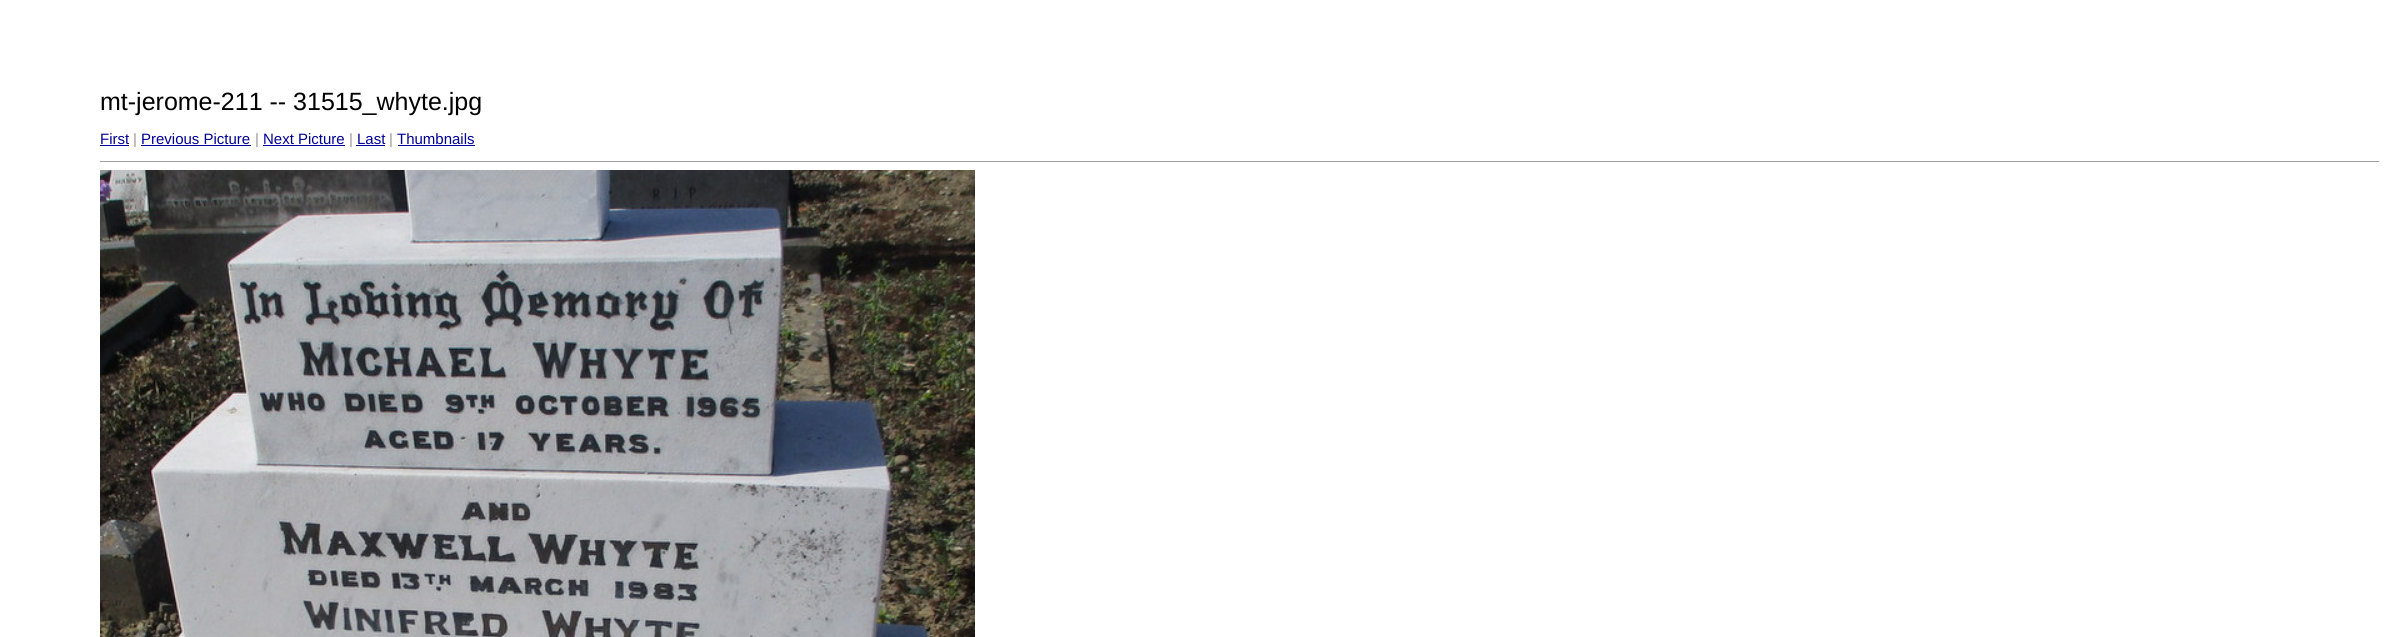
#include <cairo/cairo.h>
#include <math.h>
#include <stddef.h>

static cairo_t *cr;

static void use_color(int r, int g, int b) {
  cairo_set_source_rgb(cr, r / 255.0, g / 255.0, b / 255.0);
}

static void text(double x, double y, const char *s, const char *family, double size, int italic, int bold, int r, int g, int b) {
  cairo_select_font_face(cr, family, italic ? CAIRO_FONT_SLANT_ITALIC : CAIRO_FONT_SLANT_NORMAL,
    bold ? CAIRO_FONT_WEIGHT_BOLD : CAIRO_FONT_WEIGHT_NORMAL);
  cairo_set_font_size(cr, size);
  use_color(r, g, b);
  cairo_move_to(cr, x, y);
  cairo_show_text(cr, s);
}

static void box(double x, double y, double w, double h, int r, int g, int b) {
  use_color(r, g, b);
  cairo_rectangle(cr, x, y, w, h);
  cairo_fill(cr);
}

static void picture(const char *path, double x, double y, double w, double h) {
  cairo_surface_t *image = cairo_image_surface_create_from_png(path);
  cairo_save(cr);
  cairo_set_source_surface(cr, image, x, y);
  cairo_rectangle(cr, x, y, w, h);
  cairo_fill(cr);
  cairo_restore(cr);
  cairo_surface_destroy(image);
}

static void draw(void) {
  use_color(255, 255, 255);
  cairo_paint(cr);
  box(100, 145, 29, 1, 0, 0, 153);
  box(141, 145, 110, 1, 0, 0, 153);
  box(263, 145, 82, 1, 0, 0, 153);
  box(356, 145, 29, 1, 0, 0, 153);
  box(398, 145, 77, 1, 0, 0, 153);
  box(100, 161, 2280, 1, 159, 159, 159);
  box(2379, 161, 1, 1, 238, 238, 238);
  picture("img_01.png", 100, 170, 875, 467);
  text(100, 110, "mt-jerome-211 -- 31515_whyte.jpg", "Liberation Sans", 25, 0, 0, 0, 0, 0);
  text(100, 144, "First", "Liberation Sans", 15, 0, 0, 0, 0, 153);
  text(133, 144, "|", "Liberation Sans", 15, 0, 0, 151, 151, 151);
  text(141, 144, "Previous Picture", "Liberation Sans", 15, 0, 0, 0, 0, 153);
  text(255, 144, "|", "Liberation Sans", 15, 0, 0, 151, 151, 151);
  text(263, 144, "Next Picture", "Liberation Sans", 15, 0, 0, 0, 0, 153);
  text(349, 144, "|", "Liberation Sans", 15, 0, 0, 151, 151, 151);
  text(357, 144, "Last", "Liberation Sans", 15, 0, 0, 0, 0, 153);
  text(389, 144, "|", "Liberation Sans", 15, 0, 0, 151, 151, 151);
  text(397, 144, "Thumbnails", "Liberation Sans", 15, 0, 0, 0, 0, 153);
}

int main(void) {
  cairo_surface_t *surface = cairo_image_surface_create(CAIRO_FORMAT_RGB24, 2389, 637);
  cr = cairo_create(surface);
  cairo_font_options_t *options = cairo_font_options_create();
  cairo_font_options_set_hint_metrics(options, CAIRO_HINT_METRICS_OFF);
  cairo_font_options_set_hint_style(options, CAIRO_HINT_STYLE_NONE);
  cairo_set_font_options(cr, options);
  cairo_set_miter_limit(cr, 4);
  draw();
  cairo_surface_write_to_png(surface, "out.png");
  cairo_font_options_destroy(options);
  cairo_destroy(cr);
  cairo_surface_destroy(surface);
  return 0;
}
